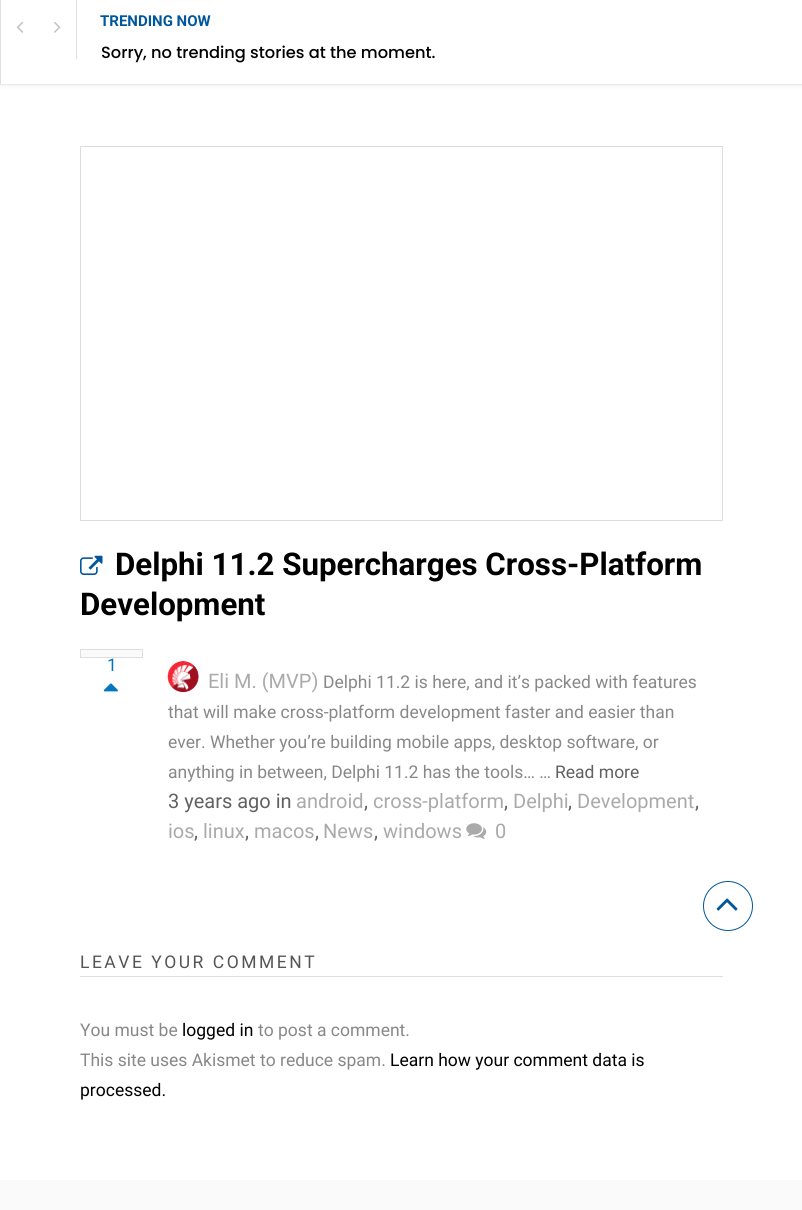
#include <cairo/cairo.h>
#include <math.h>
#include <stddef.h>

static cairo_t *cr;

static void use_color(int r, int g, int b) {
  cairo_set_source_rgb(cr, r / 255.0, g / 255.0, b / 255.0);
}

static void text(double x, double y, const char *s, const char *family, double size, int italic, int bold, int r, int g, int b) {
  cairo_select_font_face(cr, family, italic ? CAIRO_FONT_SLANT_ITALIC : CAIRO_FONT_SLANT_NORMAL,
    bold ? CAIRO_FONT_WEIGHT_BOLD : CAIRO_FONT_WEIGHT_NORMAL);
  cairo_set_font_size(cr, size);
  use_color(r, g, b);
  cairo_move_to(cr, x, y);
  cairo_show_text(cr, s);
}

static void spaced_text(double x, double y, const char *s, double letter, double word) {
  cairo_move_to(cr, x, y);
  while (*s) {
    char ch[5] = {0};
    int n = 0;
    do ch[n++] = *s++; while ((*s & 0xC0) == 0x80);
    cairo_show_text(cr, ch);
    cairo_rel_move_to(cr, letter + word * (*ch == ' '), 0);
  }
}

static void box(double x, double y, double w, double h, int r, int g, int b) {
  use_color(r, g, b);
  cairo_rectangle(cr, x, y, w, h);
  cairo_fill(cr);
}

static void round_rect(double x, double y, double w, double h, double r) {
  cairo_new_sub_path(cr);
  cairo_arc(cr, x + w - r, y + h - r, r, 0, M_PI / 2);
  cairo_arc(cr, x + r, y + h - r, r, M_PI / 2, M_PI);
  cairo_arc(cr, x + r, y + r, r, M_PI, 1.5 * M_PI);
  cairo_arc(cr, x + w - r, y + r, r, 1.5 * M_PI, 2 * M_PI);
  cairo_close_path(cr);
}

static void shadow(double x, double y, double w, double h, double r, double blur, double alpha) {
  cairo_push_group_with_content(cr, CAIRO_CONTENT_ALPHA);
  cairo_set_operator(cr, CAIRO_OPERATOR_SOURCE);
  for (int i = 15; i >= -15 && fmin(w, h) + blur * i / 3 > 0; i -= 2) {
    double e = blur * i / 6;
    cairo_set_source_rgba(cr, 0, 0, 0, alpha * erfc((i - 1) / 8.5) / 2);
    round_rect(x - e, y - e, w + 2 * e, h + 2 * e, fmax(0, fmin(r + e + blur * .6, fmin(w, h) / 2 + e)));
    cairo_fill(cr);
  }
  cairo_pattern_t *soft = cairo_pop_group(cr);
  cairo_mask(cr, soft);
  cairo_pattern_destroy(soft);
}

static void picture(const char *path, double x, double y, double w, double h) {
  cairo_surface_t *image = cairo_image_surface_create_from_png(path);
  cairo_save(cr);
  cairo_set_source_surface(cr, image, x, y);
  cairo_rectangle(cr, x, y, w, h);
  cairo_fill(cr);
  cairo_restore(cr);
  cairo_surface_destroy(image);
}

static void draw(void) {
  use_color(255, 255, 255);
  cairo_paint(cr);
  use_color(0, 0, 0);
  shadow(0, -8, 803, 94, 0, 2.5, 0.06);
  cairo_set_source_rgba(cr, 0, 0, 0, 0.05);
  cairo_new_path(cr);
  cairo_move_to(cr, 0, 84);
  cairo_line_to(cr, 0, 85);
  cairo_line_to(cr, 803, 85);
  cairo_line_to(cr, 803, -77);
  cairo_line_to(cr, 802, -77);
  cairo_line_to(cr, 802, 84);
  cairo_close_path(cr);
  cairo_fill(cr);
  box(1, 0, 801, 84, 255, 255, 255);
  box(0, 0, 1, 84, 222, 222, 222);
  box(76, 0, 1, 59, 222, 222, 222);
  picture("img_01.png", 16, 21, 8, 12);
  picture("img_02.png", 54, 21, 7, 12);
  cairo_rectangle(cr, 80.5, 146.5, 642, 374);
  use_color(221, 221, 221);
  cairo_set_line_width(cr, 1);
  cairo_stroke(cr);
  picture("img_03.png", 80, 555, 23, 20);
  use_color(250, 250, 250);
  cairo_rectangle(cr, 80.5, 649.5, 62, 8);
  cairo_fill_preserve(cr);
  use_color(222, 222, 222);
  cairo_stroke(cr);
  picture("img_04.png", 103, 683, 15, 9);
  picture("img_05.png", 167, 661, 32, 32);
  picture("img_06.png", 466, 823, 21, 16);
  box(80, 976, 643, 1, 222, 222, 222);
  cairo_arc(cr, 728, 906, 24.5, 0, 2 * M_PI);
  use_color(1, 87, 155);
  cairo_stroke(cr);
  picture("img_07.png", 716, 898, 22, 13);
  box(0, 1180, 802, 30, 250, 250, 250);
  text(100, 26, "TRENDING NOW", "Roboto", 15, 0, 1, 1, 87, 155);
  text(101, 58, "Sorry, no trending stories at the moment.", "Poppins Medium", 16.25, 0, 0, 0, 0, 0);
  text(115, 575, "Delphi 11.2 Supercharges Cross-Platform", "Roboto", 31.25, 0, 1, 0, 0, 0);
  text(80, 615, "Development", "Roboto", 31.25, 0, 1, 0, 0, 0);
  text(107, 671, "1", "Roboto", 17.5, 0, 0, 2, 119, 189);
  text(208, 688, "Eli M. (MVP)", "Roboto", 20, 0, 0, 170, 170, 170);
  text(323, 688, "Delphi 11.2 is here, and it’s packed with features", "Roboto", 17.5, 0, 0, 136, 136, 136);
  text(168, 718, "that will make cross-platform development faster and easier than", "Roboto", 17.5, 0, 0, 136, 136, 136);
  text(168, 748, "ever. Whether you’re building mobile apps, desktop software, or", "Roboto", 17.5, 0, 0, 136, 136, 136);
  text(168, 778, "anything in between, Delphi 11.2 has the tools… …", "Roboto", 17.5, 0, 0, 136, 136, 136);
  text(555, 778, "Read more", "Roboto", 17.5, 0, 0, 97, 97, 97);
  text(168, 808, "3 years ago in", "Roboto", 20, 0, 0, 97, 97, 97);
  text(296, 808, "android", "Roboto", 20, 0, 0, 170, 170, 170);
  text(364, 808, ",", "Roboto", 20, 0, 0, 97, 97, 97);
  text(373, 808, "cross-platform", "Roboto", 20, 0, 0, 170, 170, 170);
  text(504, 808, ",", "Roboto", 20, 0, 0, 97, 97, 97);
  text(513, 808, "Delphi", "Roboto", 20, 0, 0, 170, 170, 170);
  text(568, 808, ",", "Roboto", 20, 0, 0, 97, 97, 97);
  text(577, 808, "Development", "Roboto", 20, 0, 0, 170, 170, 170);
  text(695, 808, ",", "Roboto", 20, 0, 0, 97, 97, 97);
  text(168, 838, "ios", "Roboto", 20, 0, 0, 170, 170, 170);
  text(194, 838, ",", "Roboto", 20, 0, 0, 97, 97, 97);
  text(203, 838, "linux", "Roboto", 20, 0, 0, 170, 170, 170);
  text(245, 838, ",", "Roboto", 20, 0, 0, 97, 97, 97);
  text(254, 838, "macos", "Roboto", 20, 0, 0, 170, 170, 170);
  text(315, 838, ",", "Roboto", 20, 0, 0, 97, 97, 97);
  text(323, 838, "News", "Roboto", 20, 0, 0, 170, 170, 170);
  text(374, 838, ",", "Roboto", 20, 0, 0, 97, 97, 97);
  text(383, 838, "windows", "Roboto", 20, 0, 0, 170, 170, 170);
  text(495, 838, "0", "Roboto", 20, 0, 0, 170, 170, 170);
  cairo_set_font_size(cr, 17.5);
  use_color(85, 85, 85);
  spaced_text(80, 968, "LEAVE YOUR COMMENT", 2.5, 0);
  text(80, 1036, "You must be", "Roboto", 17.5, 0, 0, 136, 136, 136);
  text(182, 1036, "logged in", "Roboto", 17.5, 0, 0, 0, 0, 0);
  text(258, 1036, "to post a comment.", "Roboto", 17.5, 0, 0, 136, 136, 136);
  text(80, 1066, "This site uses Akismet to reduce spam.", "Roboto", 17.5, 0, 0, 136, 136, 136);
  text(390, 1066, "Learn how your comment data is", "Roboto", 17.5, 0, 0, 0, 0, 0);
  text(80, 1096, "processed.", "Roboto", 17.5, 0, 0, 0, 0, 0);
}

int main(void) {
  cairo_surface_t *surface = cairo_image_surface_create(CAIRO_FORMAT_RGB24, 802, 1210);
  cr = cairo_create(surface);
  cairo_font_options_t *options = cairo_font_options_create();
  cairo_font_options_set_hint_metrics(options, CAIRO_HINT_METRICS_OFF);
  cairo_font_options_set_hint_style(options, CAIRO_HINT_STYLE_NONE);
  cairo_set_font_options(cr, options);
  cairo_set_miter_limit(cr, 4);
  draw();
  cairo_surface_write_to_png(surface, "out.png");
  cairo_font_options_destroy(options);
  cairo_destroy(cr);
  cairo_surface_destroy(surface);
  return 0;
}
